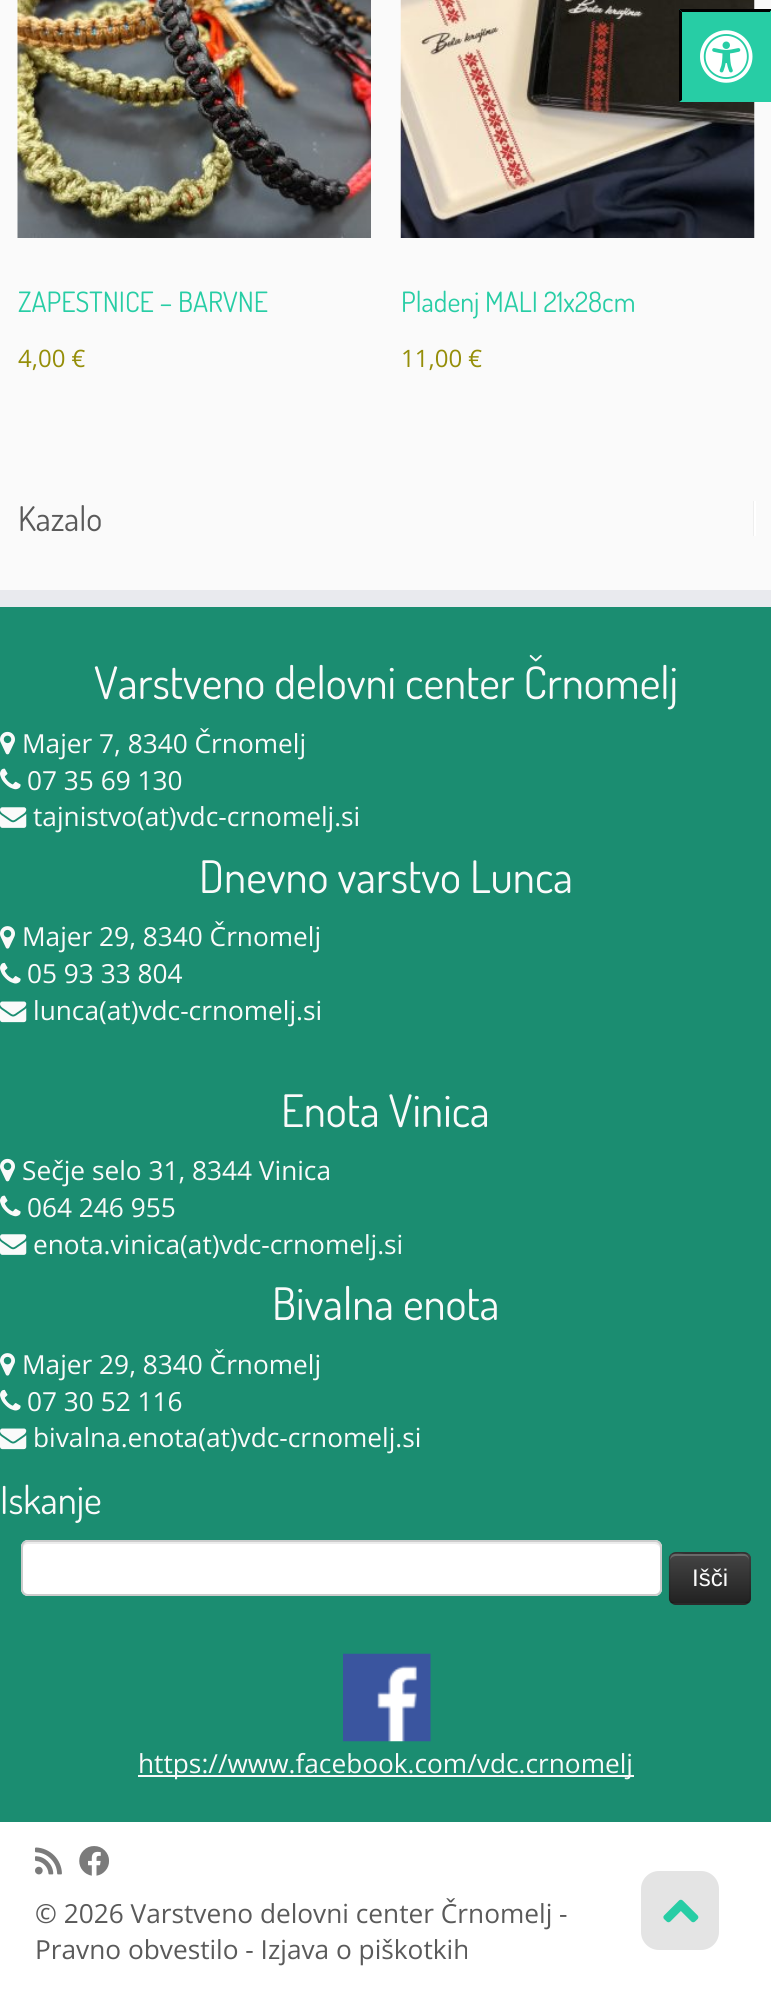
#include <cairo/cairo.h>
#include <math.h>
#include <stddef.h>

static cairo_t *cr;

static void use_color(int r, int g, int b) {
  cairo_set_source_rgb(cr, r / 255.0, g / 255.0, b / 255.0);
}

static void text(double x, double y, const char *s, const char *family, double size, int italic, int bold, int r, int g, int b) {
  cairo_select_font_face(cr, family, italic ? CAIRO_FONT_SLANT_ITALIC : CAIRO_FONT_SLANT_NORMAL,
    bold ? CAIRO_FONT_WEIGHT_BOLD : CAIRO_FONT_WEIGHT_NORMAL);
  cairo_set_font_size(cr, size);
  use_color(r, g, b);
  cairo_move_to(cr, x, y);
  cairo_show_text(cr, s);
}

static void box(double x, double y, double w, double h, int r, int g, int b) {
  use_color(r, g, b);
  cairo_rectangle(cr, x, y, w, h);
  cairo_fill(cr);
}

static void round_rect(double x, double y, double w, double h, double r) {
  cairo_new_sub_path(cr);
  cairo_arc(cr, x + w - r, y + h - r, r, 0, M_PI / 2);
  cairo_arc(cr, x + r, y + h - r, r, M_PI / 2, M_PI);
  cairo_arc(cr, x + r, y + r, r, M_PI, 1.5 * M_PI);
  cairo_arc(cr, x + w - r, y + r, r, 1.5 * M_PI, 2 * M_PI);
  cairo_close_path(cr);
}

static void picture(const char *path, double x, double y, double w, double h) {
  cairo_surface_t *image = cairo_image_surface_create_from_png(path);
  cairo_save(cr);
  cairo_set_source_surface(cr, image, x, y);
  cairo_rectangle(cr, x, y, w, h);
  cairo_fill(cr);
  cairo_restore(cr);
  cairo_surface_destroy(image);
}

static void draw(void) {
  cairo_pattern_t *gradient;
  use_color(250, 250, 250);
  cairo_paint(cr);
  picture("img_03.png", 400, 0, 355, 238);
  box(679, 9, 92, 93, 39, 205, 165);
  use_color(0, 0, 0);
  cairo_new_path(cr);
  cairo_move_to(cr, 679, 9);
  cairo_line_to(cr, 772, 9);
  cairo_line_to(cr, 770, 12);
  cairo_line_to(cr, 682, 12);
  cairo_close_path(cr);
  cairo_fill(cr);
  use_color(39, 205, 165);
  cairo_new_path(cr);
  cairo_move_to(cr, 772, 9);
  cairo_line_to(cr, 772, 102);
  cairo_line_to(cr, 770, 100);
  cairo_line_to(cr, 770, 12);
  cairo_close_path(cr);
  cairo_fill(cr);
  use_color(0, 0, 0);
  cairo_new_path(cr);
  cairo_move_to(cr, 679, 102);
  cairo_line_to(cr, 679, 9);
  cairo_line_to(cr, 682, 12);
  cairo_line_to(cr, 682, 100);
  cairo_close_path(cr);
  cairo_fill(cr);
  picture("img_01.png", 700, 30, 53, 53);
  picture("img_02.png", 17, 0, 354, 238);
  box(753, 501, 1, 35, 238, 238, 238);
  box(754, 501, 2, 35, 255, 255, 255);
  box(0, 607, 771, 1215, 27, 141, 113);
  box(0, 590, 771, 17, 233, 234, 238);
  picture("img_04.png", 0, 731, 15, 24);
  picture("img_05.png", 0, 768, 21, 22);
  picture("img_06.png", 0, 807, 27, 21);
  picture("img_07.png", 0, 926, 15, 23);
  picture("img_08.png", 0, 962, 21, 22);
  picture("img_09.png", 0, 1001, 27, 22);
  picture("img_04.png", 0, 1158, 15, 24);
  picture("img_05.png", 0, 1195, 21, 22);
  picture("img_06.png", 0, 1234, 27, 21);
  picture("img_07.png", 0, 1353, 15, 23);
  picture("img_10.png", 0, 1389, 21, 22);
  picture("img_11.png", 0, 1428, 27, 22);
  use_color(255, 255, 255);
  round_rect(21, 1540, 641, 56, 7);
  cairo_fill(cr);
  use_color(236, 236, 236);
  cairo_new_path(cr);
  cairo_move_to(cr, 28, 1544);
  cairo_line_to(cr, 654, 1544);
  cairo_curve_to(cr, 657, 1544, 660, 1546, 660, 1549);
  cairo_line_to(cr, 660, 1547);
  cairo_curve_to(cr, 660, 1544, 658, 1542, 655, 1542);
  cairo_line_to(cr, 28, 1542);
  cairo_curve_to(cr, 25, 1542, 23, 1544, 23, 1547);
  cairo_line_to(cr, 23, 1549);
  cairo_curve_to(cr, 23, 1546, 25, 1544, 28, 1544);
  cairo_close_path(cr);
  cairo_fill(cr);
  round_rect(22, 1541, 639, 54, 6);
  use_color(204, 204, 204);
  cairo_stroke(cr);
  use_color(54, 54, 54);
  round_rect(669, 1552, 82, 53, 7);
  cairo_fill(cr);
  cairo_save(cr);
  round_rect(669, 1552, 82, 53, 7);
  cairo_clip(cr);
  gradient = cairo_pattern_create_linear(710, 1554, 710, 1603);
  cairo_pattern_add_color_stop_rgba(gradient, 0, 0.267, 0.267, 0.267, 1);
  cairo_pattern_add_color_stop_rgba(gradient, 1, 0.133, 0.133, 0.133, 1);
  cairo_set_source(cr, gradient);
  cairo_pattern_destroy(gradient);
  cairo_rectangle(cr, 669, 1554, 82, 49);
  cairo_fill(cr);
  cairo_restore(cr);
  cairo_set_source_rgba(cr, 1, 1, 1, 0.2);
  cairo_new_path(cr);
  cairo_move_to(cr, 676, 1556);
  cairo_line_to(cr, 744, 1556);
  cairo_curve_to(cr, 747, 1556, 749, 1558, 749, 1561);
  cairo_curve_to(cr, 749, 1551, 741, 1554, 732, 1554);
  cairo_line_to(cr, 686, 1554);
  cairo_curve_to(cr, 678, 1554, 670, 1551, 670, 1561);
  cairo_curve_to(cr, 670, 1558, 673, 1556, 676, 1556);
  cairo_close_path(cr);
  cairo_fill(cr);
  cairo_new_path(cr);
  cairo_move_to(cr, 748, 1602);
  cairo_curve_to(cr, 747, 1603, 745.5, 1604, 744, 1604);
  cairo_line_to(cr, 675.5, 1604);
  cairo_curve_to(cr, 674, 1604, 672.5, 1603, 671, 1602);
  cairo_set_source_rgba(cr, 0, 0, 0, 0.25);
  cairo_set_line_width(cr, 1.8);
  cairo_stroke(cr);
  cairo_new_path(cr);
  cairo_move_to(cr, 671, 1602);
  cairo_curve_to(cr, 670, 1601, 669.5, 1599.5, 669.5, 1598);
  cairo_line_to(cr, 669.5, 1559);
  cairo_curve_to(cr, 669.5, 1557.5, 670, 1556, 671, 1555);
  cairo_curve_to(cr, 672.5, 1554, 674, 1553, 675.5, 1553);
  cairo_line_to(cr, 744, 1553);
  cairo_curve_to(cr, 745.5, 1553, 747, 1554, 748, 1555);
  cairo_curve_to(cr, 749, 1556, 750, 1557.5, 750, 1559);
  cairo_line_to(cr, 750, 1598);
  cairo_curve_to(cr, 750, 1599.5, 749, 1601, 748, 1602);
  cairo_set_source_rgba(cr, 0, 0, 0, 0.1);
  cairo_stroke(cr);
  picture("img_12.png", 343, 1653, 88, 89);
  box(138, 1775, 496, 2, 250, 250, 250);
  box(0, 1822, 771, 171, 255, 255, 255);
  picture("img_13.png", 35, 1847, 27, 28);
  picture("img_14.png", 79, 1846, 30, 30);
  use_color(228, 228, 228);
  round_rect(641, 1871, 78, 79, 18);
  cairo_fill(cr);
  picture("img_15.png", 663, 1899, 36, 24);
  text(18, 312, "ZAPESTNICE – BARVNE", "Dosis", 28, 0, 0, 39, 205, 165);
  text(18, 367, "4,00 €", "Open Sans", 24, 0, 0, 149, 142, 9);
  text(401, 312, "Pladenj MALI 21x28cm", "Dosis", 28, 0, 0, 39, 205, 165);
  text(401, 367, "11,00 €", "Open Sans", 24, 0, 0, 149, 142, 9);
  text(18, 531, "Kazalo", "Dosis", 34, 0, 0, 90, 90, 90);
  text(94, 699, "Varstveno delovni center Črnomelj", "Dosis", 44.75, 0, 0, 250, 250, 250);
  text(22, 753, "Majer 7, 8340 Črnomelj", "Open Sans", 26.25, 0, 0, 250, 250, 250);
  text(27, 790, "07 35 69 130", "Open Sans", 26.25, 0, 0, 250, 250, 250);
  text(33, 826, "tajnistvo(at)vdc-crnomelj.si", "Open Sans", 26.25, 0, 0, 250, 250, 250);
  text(199, 893, "Dnevno varstvo Lunca", "Dosis", 44.75, 0, 0, 250, 250, 250);
  text(22, 946, "Majer 29, 8340 Črnomelj", "Open Sans", 26.25, 0, 0, 250, 250, 250);
  text(27, 983, "05 93 33 804", "Open Sans", 26.25, 0, 0, 250, 250, 250);
  text(33, 1020, "lunca(at)vdc-crnomelj.si", "Open Sans", 26.25, 0, 0, 250, 250, 250);
  text(281, 1127, "Enota Vinica", "Dosis", 44.75, 0, 0, 250, 250, 250);
  text(22, 1180, "Sečje selo 31, 8344 Vinica", "Open Sans", 26.25, 0, 0, 250, 250, 250);
  text(27, 1217, "064 246 955", "Open Sans", 26.25, 0, 0, 250, 250, 250);
  text(33, 1254, "enota.vinica(at)vdc-crnomelj.si", "Open Sans", 26.25, 0, 0, 250, 250, 250);
  text(272, 1320, "Bivalna enota", "Dosis", 44.75, 0, 0, 250, 250, 250);
  text(22, 1374, "Majer 29, 8340 Črnomelj", "Open Sans", 26.25, 0, 0, 250, 250, 250);
  text(27, 1411, "07 30 52 116", "Open Sans", 26.25, 0, 0, 250, 250, 250);
  text(33, 1447, "bivalna.enota(at)vdc-crnomelj.si", "Open Sans", 26.25, 0, 0, 250, 250, 250);
  text(0, 1514, "Iskanje", "Dosis", 38.5, 0, 0, 250, 250, 250);
  text(692, 1586, "Išči", "Liberation Sans", 24, 0, 0, 250, 250, 250);
  text(138, 1773, "https://www.facebook.com/vdc.crnomelj", "Open Sans", 26.25, 0, 0, 250, 250, 250);
  text(35, 1923, "© 2026 Varstveno delovni center Črnomelj -", "Open Sans", 26.25, 0, 0, 90, 90, 90);
  text(35, 1959, "Pravno obvestilo - Izjava o piškotkih", "Open Sans", 26.25, 0, 0, 90, 90, 90);
}

int main(void) {
  cairo_surface_t *surface = cairo_image_surface_create(CAIRO_FORMAT_RGB24, 771, 1993);
  cr = cairo_create(surface);
  cairo_font_options_t *options = cairo_font_options_create();
  cairo_font_options_set_hint_metrics(options, CAIRO_HINT_METRICS_OFF);
  cairo_font_options_set_hint_style(options, CAIRO_HINT_STYLE_NONE);
  cairo_set_font_options(cr, options);
  cairo_set_miter_limit(cr, 4);
  draw();
  cairo_surface_write_to_png(surface, "out.png");
  cairo_font_options_destroy(options);
  cairo_destroy(cr);
  cairo_surface_destroy(surface);
  return 0;
}
